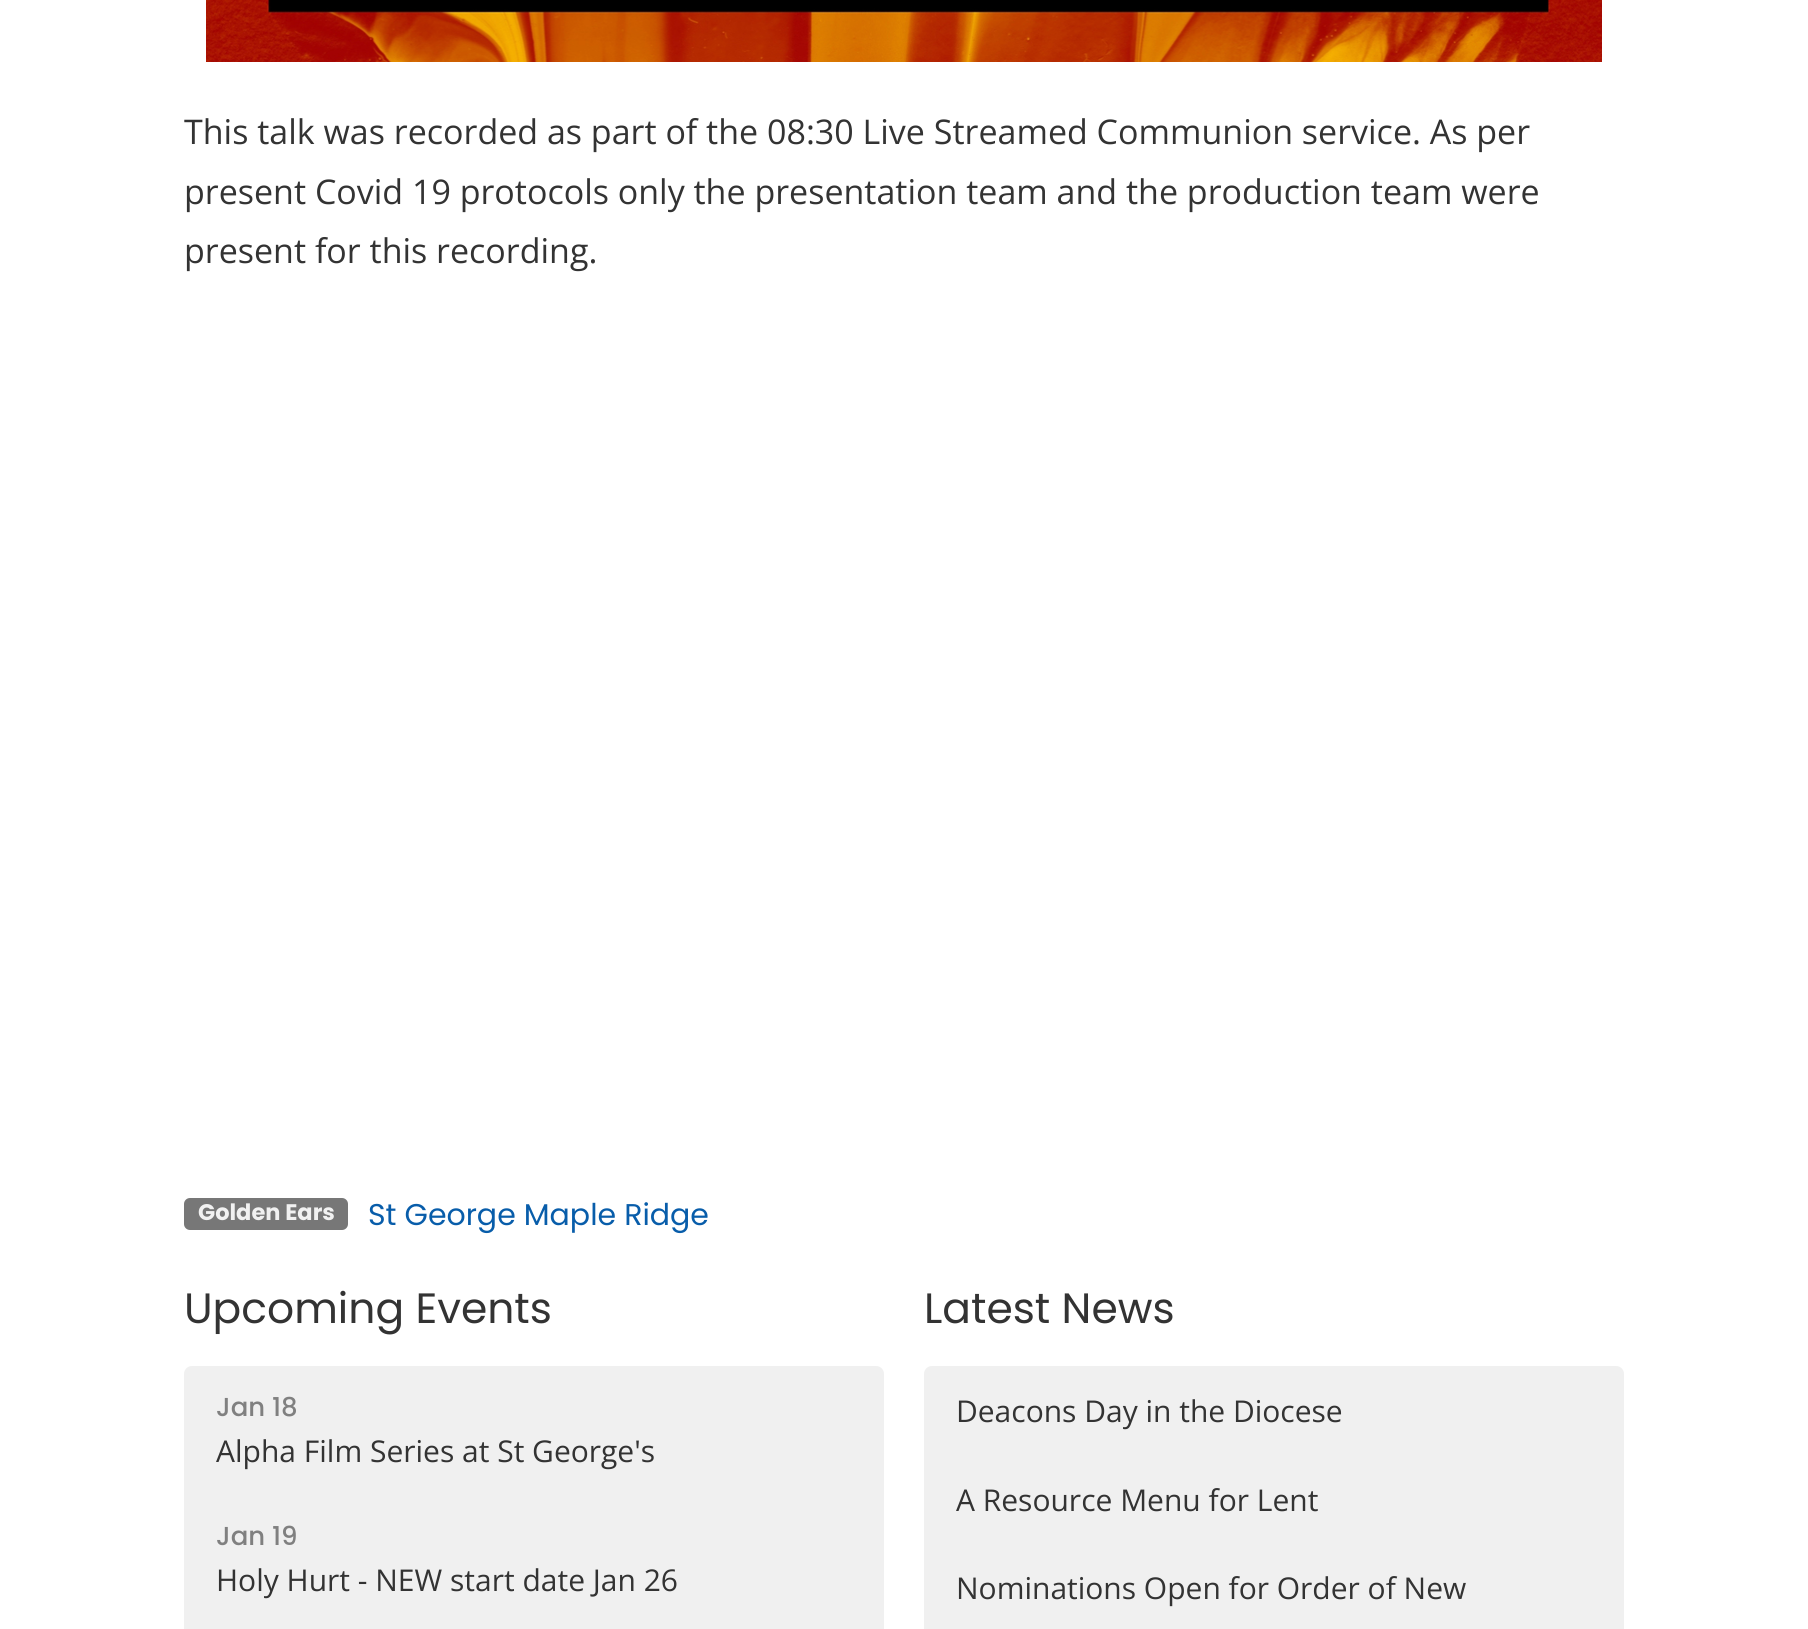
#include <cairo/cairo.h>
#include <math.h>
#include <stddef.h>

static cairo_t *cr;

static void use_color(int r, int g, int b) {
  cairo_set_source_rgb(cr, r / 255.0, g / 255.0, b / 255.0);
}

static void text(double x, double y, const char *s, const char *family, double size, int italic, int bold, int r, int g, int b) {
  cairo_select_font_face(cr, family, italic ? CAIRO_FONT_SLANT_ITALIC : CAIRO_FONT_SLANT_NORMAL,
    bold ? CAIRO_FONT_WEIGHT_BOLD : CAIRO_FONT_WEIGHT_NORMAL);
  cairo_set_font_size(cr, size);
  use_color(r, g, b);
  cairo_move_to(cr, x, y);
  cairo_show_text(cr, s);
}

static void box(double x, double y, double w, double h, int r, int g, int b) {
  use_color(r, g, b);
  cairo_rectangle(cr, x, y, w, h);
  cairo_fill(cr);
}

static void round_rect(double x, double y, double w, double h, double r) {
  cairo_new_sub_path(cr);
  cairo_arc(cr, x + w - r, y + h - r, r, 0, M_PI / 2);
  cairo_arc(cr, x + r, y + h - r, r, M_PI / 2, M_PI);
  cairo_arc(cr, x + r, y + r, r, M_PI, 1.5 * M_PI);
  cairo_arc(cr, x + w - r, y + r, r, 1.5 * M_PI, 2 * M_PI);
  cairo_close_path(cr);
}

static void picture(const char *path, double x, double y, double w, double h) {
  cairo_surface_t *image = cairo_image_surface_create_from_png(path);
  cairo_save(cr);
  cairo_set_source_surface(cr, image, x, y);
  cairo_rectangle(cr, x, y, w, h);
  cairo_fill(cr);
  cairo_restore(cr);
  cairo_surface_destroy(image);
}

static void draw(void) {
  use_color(255, 255, 255);
  cairo_paint(cr);
  picture("img_01.png", 206, 0, 1396, 62);
  use_color(119, 119, 119);
  round_rect(184, 1198, 164, 32, 6);
  cairo_fill(cr);
  use_color(240, 240, 240);
  cairo_new_path(cr);
  cairo_move_to(cr, 192, 1366);
  cairo_line_to(cr, 876, 1366);
  cairo_curve_to(cr, 880.5, 1366, 884, 1369.5, 884, 1374);
  cairo_line_to(cr, 884, 1496);
  cairo_line_to(cr, 184, 1496);
  cairo_line_to(cr, 184, 1374);
  cairo_curve_to(cr, 184, 1369.5, 187.5, 1366, 192, 1366);
  cairo_close_path(cr);
  cairo_fill(cr);
  box(184, 1496, 700, 133, 240, 240, 240);
  cairo_new_path(cr);
  cairo_move_to(cr, 932, 1366);
  cairo_line_to(cr, 1616, 1366);
  cairo_curve_to(cr, 1620.5, 1366, 1624, 1369.5, 1624, 1374);
  cairo_line_to(cr, 1624, 1456);
  cairo_line_to(cr, 924, 1456);
  cairo_line_to(cr, 924, 1374);
  cairo_curve_to(cr, 924, 1369.5, 927.5, 1366, 932, 1366);
  cairo_close_path(cr);
  cairo_fill(cr);
  box(924, 1456, 700, 173, 240, 240, 240);
  text(184, 144, "This talk was recorded as part of the 08:30 Live Streamed Communion service. As per", "Open Sans", 34, 0, 0, 51, 51, 51);
  text(184, 204, "present Covid 19 protocols only the presentation team and the production team were", "Open Sans", 34, 0, 0, 51, 51, 51);
  text(184, 263, "present for this recording.", "Open Sans", 34, 0, 0, 51, 51, 51);
  text(198, 1220, "Golden Ears", "Poppins", 22.5, 0, 1, 241, 241, 241);
  text(368, 1225, "St George Maple Ridge", "Poppins", 30, 0, 0, 8, 93, 170);
  text(184, 1323, "Upcoming Events", "Poppins", 42.4, 0, 0, 51, 51, 51);
  text(216, 1416, "Jan 18", "Poppins Medium", 26, 0, 0, 128, 128, 128);
  text(216, 1462, "Alpha Film Series at St George's", "Open Sans", 30, 0, 0, 51, 51, 51);
  text(216, 1545, "Jan 19", "Poppins Medium", 26, 0, 0, 128, 128, 128);
  text(216, 1591, "Holy Hurt - NEW start date Jan 26", "Open Sans", 30, 0, 0, 51, 51, 51);
  text(924, 1323, "Latest News", "Poppins", 42.4, 0, 0, 51, 51, 51);
  text(956, 1422, "Deacons Day in the Diocese", "Open Sans", 30, 0, 0, 51, 51, 51);
  text(956, 1511, "A Resource Menu for Lent", "Open Sans", 30, 0, 0, 51, 51, 51);
  text(956, 1599, "Nominations Open for Order of New", "Open Sans", 30, 0, 0, 51, 51, 51);
}

int main(void) {
  cairo_surface_t *surface = cairo_image_surface_create(CAIRO_FORMAT_RGB24, 1808, 1629);
  cr = cairo_create(surface);
  cairo_font_options_t *options = cairo_font_options_create();
  cairo_font_options_set_hint_metrics(options, CAIRO_HINT_METRICS_OFF);
  cairo_font_options_set_hint_style(options, CAIRO_HINT_STYLE_NONE);
  cairo_set_font_options(cr, options);
  cairo_set_miter_limit(cr, 4);
  draw();
  cairo_surface_write_to_png(surface, "out.png");
  cairo_font_options_destroy(options);
  cairo_destroy(cr);
  cairo_surface_destroy(surface);
  return 0;
}
